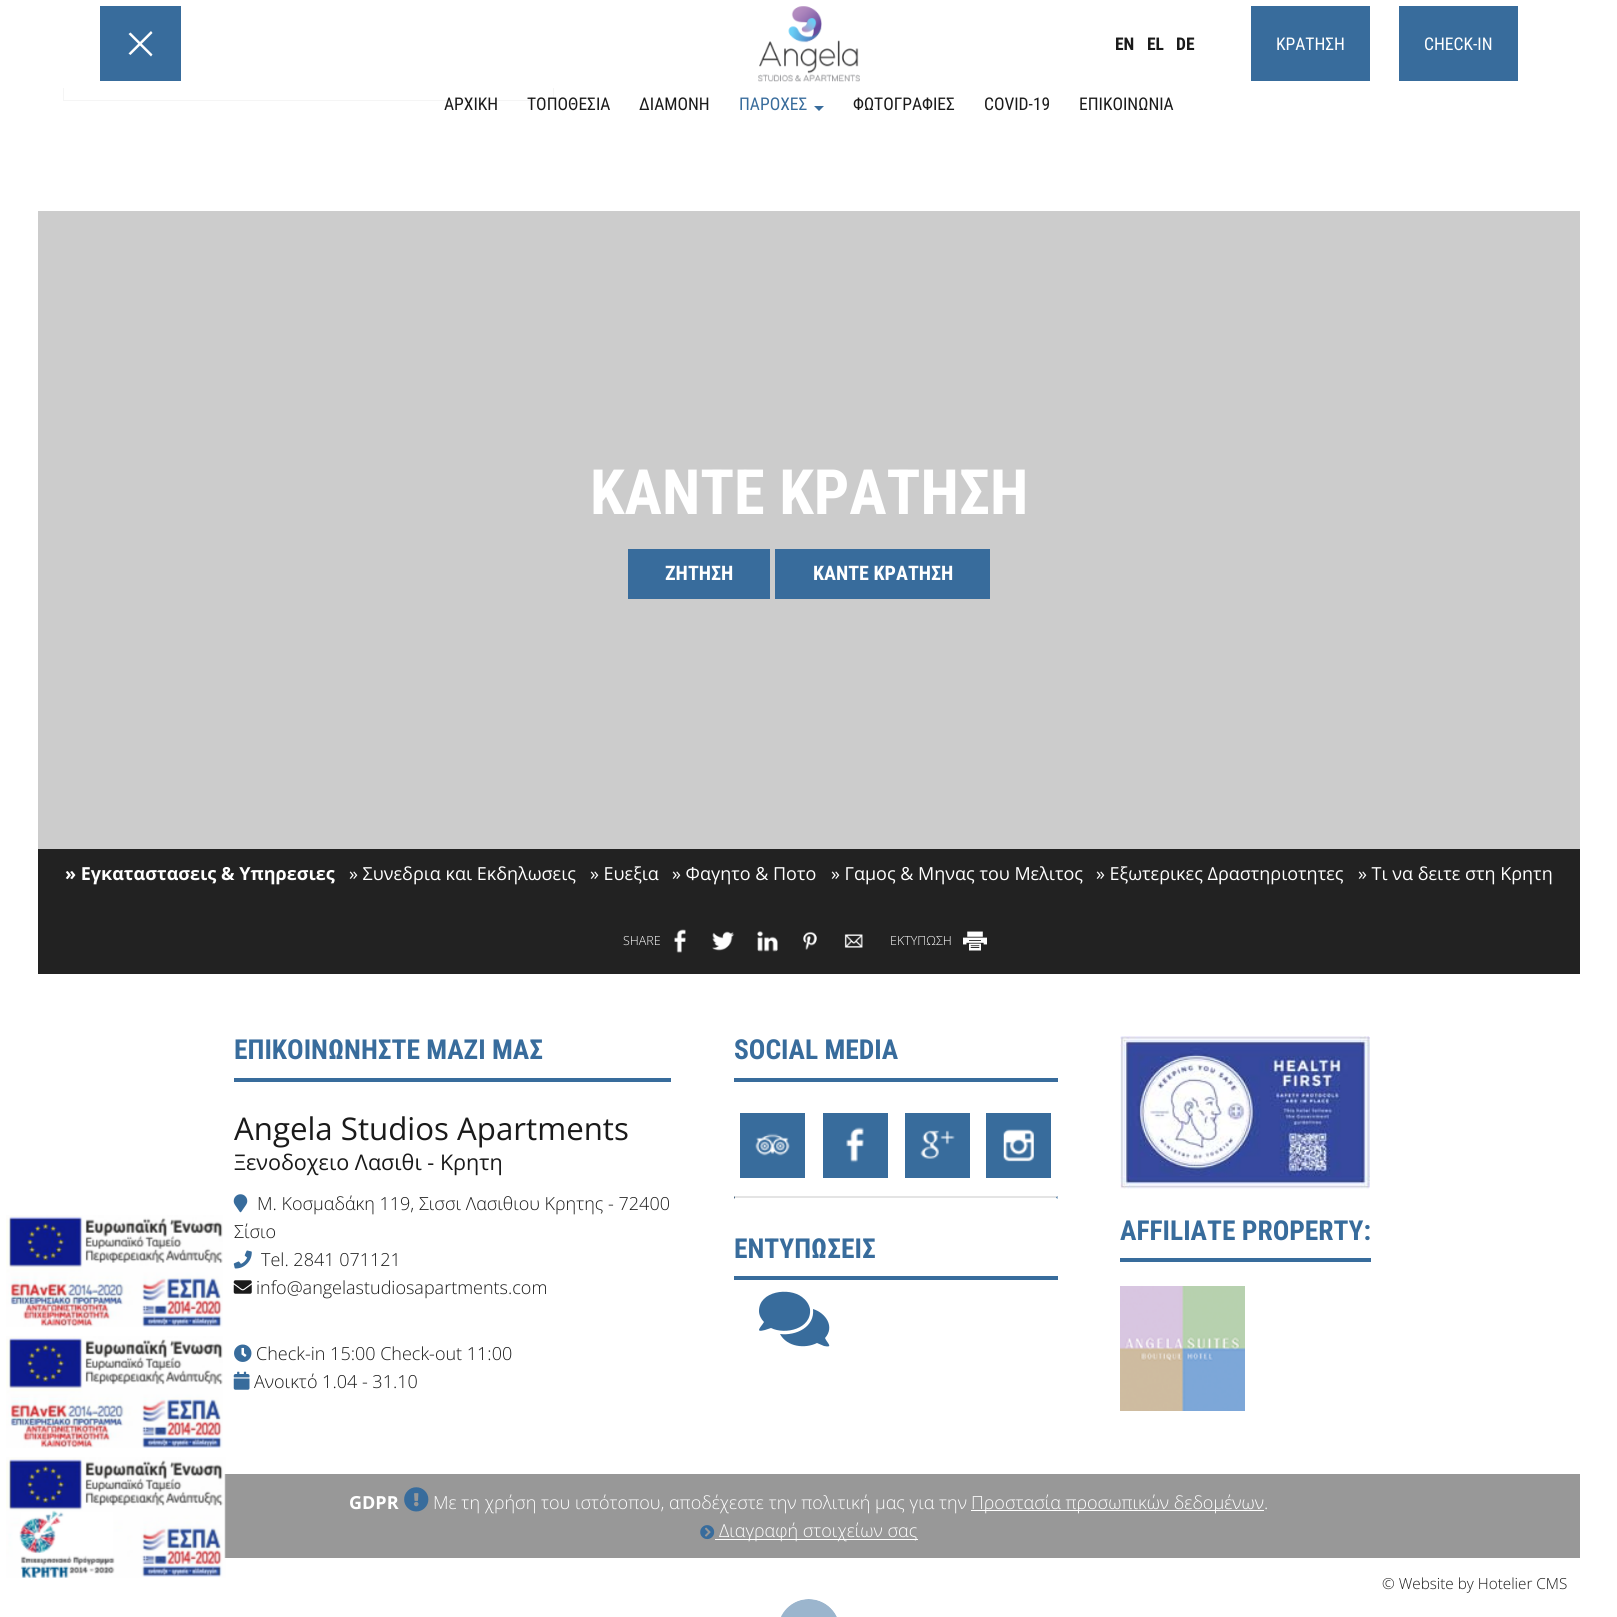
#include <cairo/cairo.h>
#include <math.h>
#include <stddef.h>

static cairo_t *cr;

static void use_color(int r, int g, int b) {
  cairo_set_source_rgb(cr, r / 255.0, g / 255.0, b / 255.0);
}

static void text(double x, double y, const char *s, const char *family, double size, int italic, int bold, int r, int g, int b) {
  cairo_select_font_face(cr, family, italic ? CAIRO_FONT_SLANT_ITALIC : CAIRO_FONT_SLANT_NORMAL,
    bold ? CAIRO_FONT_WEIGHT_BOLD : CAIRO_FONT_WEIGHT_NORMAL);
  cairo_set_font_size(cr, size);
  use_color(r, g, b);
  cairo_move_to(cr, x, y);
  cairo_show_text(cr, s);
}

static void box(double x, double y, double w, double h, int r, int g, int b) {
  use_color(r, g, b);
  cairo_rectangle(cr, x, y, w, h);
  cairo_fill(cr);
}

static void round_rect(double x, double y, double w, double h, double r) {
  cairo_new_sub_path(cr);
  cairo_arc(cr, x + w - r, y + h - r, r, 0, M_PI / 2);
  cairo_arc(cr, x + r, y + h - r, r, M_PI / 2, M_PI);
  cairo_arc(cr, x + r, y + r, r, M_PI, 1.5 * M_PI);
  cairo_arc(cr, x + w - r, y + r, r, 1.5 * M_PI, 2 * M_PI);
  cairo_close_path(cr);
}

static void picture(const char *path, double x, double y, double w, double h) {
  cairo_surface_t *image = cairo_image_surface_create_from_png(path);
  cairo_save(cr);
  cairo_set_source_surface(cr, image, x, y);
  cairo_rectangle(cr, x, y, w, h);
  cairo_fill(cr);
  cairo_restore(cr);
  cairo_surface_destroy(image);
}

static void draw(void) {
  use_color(255, 255, 255);
  cairo_paint(cr);
  cairo_rectangle(cr, 63.5, -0.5, 490, 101);
  use_color(245, 245, 245);
  cairo_set_line_width(cr, 1);
  cairo_stroke(cr);
  box(63, 0, 491, 88, 255, 255, 255);
  box(100, 6, 81, 75, 56, 108, 156);
  use_color(255, 255, 255);
  cairo_new_path(cr);
  cairo_move_to(cr, 128.5, 53.5);
  cairo_line_to(cr, 151, 31);
  cairo_line_to(cr, 152.5, 33);
  cairo_line_to(cr, 130.5, 55);
  cairo_close_path(cr);
  cairo_fill(cr);
  cairo_new_path(cr);
  cairo_move_to(cr, 130.5, 32.5);
  cairo_line_to(cr, 152.5, 54.5);
  cairo_line_to(cr, 151, 56.5);
  cairo_line_to(cr, 128.5, 34);
  cairo_close_path(cr);
  cairo_fill(cr);
  picture("img_01.png", 758, 6, 102, 76);
  box(1251, 6, 119, 75, 56, 108, 156);
  box(1399, 6, 119, 75, 56, 108, 156);
  cairo_new_path(cr);
  cairo_move_to(cr, 814, 106);
  cairo_line_to(cr, 824, 106);
  cairo_line_to(cr, 819, 111);
  cairo_close_path(cr);
  cairo_fill(cr);
  box(38, 211, 1542, 638, 204, 204, 204);
  box(628, 549, 142, 50, 56, 108, 156);
  box(775, 549, 215, 50, 56, 108, 156);
  box(38, 849, 1542, 125, 34, 34, 34);
  picture("img_02.png", 674, 929, 12, 24);
  picture("img_03.png", 712, 931, 23, 20);
  picture("img_04.png", 757, 931, 21, 21);
  picture("img_05.png", 803, 931, 14, 19);
  picture("img_06.png", 844, 934, 19, 14);
  picture("img_07.png", 963, 931, 24, 20);
  picture("img_08.png", 6, 1215, 217, 112);
  picture("img_09.png", 6, 1336, 217, 112);
  box(224, 1474, 1356, 84, 152, 152, 152);
  picture("img_10.png", 6, 1457, 220, 121);
  box(234, 1078, 437, 4, 56, 108, 156);
  picture("img_11.png", 233, 1194, 15, 19);
  picture("img_12.png", 233, 1250, 19, 19);
  picture("img_13.png", 233, 1280, 19, 14);
  picture("img_14.png", 234, 1344, 18, 18);
  picture("img_15.png", 233, 1371, 17, 19);
  box(734, 1078, 324, 4, 56, 108, 156);
  box(740, 1113, 65, 65, 56, 108, 156);
  picture("img_16.png", 755, 1133, 35, 23);
  box(823, 1113, 65, 65, 56, 108, 156);
  picture("img_17.png", 846, 1127, 18, 36);
  box(905, 1113, 65, 65, 56, 108, 156);
  picture("img_18.png", 920, 1130, 35, 29);
  box(986, 1113, 65, 65, 56, 108, 156);
  picture("img_19.png", 1003, 1129, 31, 33);
  use_color(228, 228, 228);
  cairo_new_path(cr);
  cairo_move_to(cr, 734, 1196);
  cairo_line_to(cr, 1058, 1196);
  cairo_line_to(cr, 1056, 1198);
  cairo_line_to(cr, 735, 1198);
  cairo_close_path(cr);
  cairo_fill(cr);
  use_color(56, 108, 156);
  cairo_new_path(cr);
  cairo_move_to(cr, 1057.5, 1196);
  cairo_line_to(cr, 1057.5, 1199);
  cairo_line_to(cr, 1056, 1197.5);
  cairo_close_path(cr);
  cairo_fill(cr);
  use_color(37, 72, 104);
  cairo_new_path(cr);
  cairo_move_to(cr, 734, 1199);
  cairo_line_to(cr, 734, 1196);
  cairo_line_to(cr, 735, 1197.5);
  cairo_close_path(cr);
  cairo_fill(cr);
  box(734, 1276, 324, 4, 56, 108, 156);
  cairo_new_path(cr);
  cairo_move_to(cr, 802, 1297);
  cairo_curve_to(cr, 806, 1300, 809, 1304, 810, 1309);
  cairo_curve_to(cr, 812, 1329, 785, 1335, 771, 1328);
  cairo_line_to(cr, 765, 1330);
  cairo_curve_to(cr, 754, 1333, 761, 1327, 764, 1322);
  cairo_curve_to(cr, 761, 1319, 759, 1315, 759, 1311);
  cairo_curve_to(cr, 759, 1291, 789, 1287, 802, 1297);
  cairo_close_path(cr);
  cairo_move_to(cr, 825, 1338);
  cairo_curve_to(cr, 827, 1343, 834, 1348, 824, 1346);
  cairo_line_to(cr, 817, 1343);
  cairo_curve_to(cr, 805, 1349, 787, 1347, 780, 1334);
  cairo_curve_to(cr, 796, 1336, 815, 1327, 813, 1309);
  cairo_curve_to(cr, 826, 1313, 835, 1327, 825, 1338);
  cairo_close_path(cr);
  cairo_fill(cr);
  picture("img_20.png", 1120, 1036, 250, 153);
  box(1120, 1258, 251, 4, 56, 108, 156);
  picture("img_21.png", 1120, 1286, 125, 125);
  picture("img_22.png", 404, 1487, 25, 25);
  box(971, 1510, 293, 1, 255, 255, 255);
  picture("img_23.png", 700, 1525, 15, 15);
  box(715, 1539, 203, 1, 255, 255, 255);
  use_color(155, 181, 205);
  round_rect(778, 1599, 62, 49, 31);
  cairo_fill(cr);
  round_rect(776.5, 1598.5, 64, 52, 32);
  use_color(255, 255, 255);
  cairo_stroke(cr);
  text(1115, 50, "EN", "Roboto Condensed", 17.5, 0, 1, 26, 26, 26);
  text(1147, 50, "EL", "Roboto Condensed", 17.5, 0, 1, 26, 26, 26);
  text(1176, 50, "DE", "Roboto Condensed", 17.5, 0, 1, 26, 26, 26);
  text(1276, 50, "ΚΡΑΤΗΣΗ", "Roboto Condensed", 17.5, 0, 0, 255, 255, 255);
  text(1424, 50, "CHECK-IN", "Roboto Condensed", 17.5, 0, 0, 255, 255, 255);
  text(444, 110, "ΑΡΧΙΚΗ", "Roboto Condensed", 17.5, 0, 0, 26, 26, 26);
  text(527, 110, "ΤΟΠΟΘΕΣΙΑ", "Roboto Condensed", 17.5, 0, 0, 26, 26, 26);
  text(639, 110, "ΔΙΑΜΟΝΗ", "Roboto Condensed", 17.5, 0, 0, 26, 26, 26);
  text(739, 110, "ΠΑΡΟΧΕΣ", "Roboto Condensed", 17.5, 0, 0, 56, 108, 156);
  text(853, 110, "ΦΩΤΟΓΡΑΦΙΕΣ", "Roboto Condensed", 17.5, 0, 0, 26, 26, 26);
  text(984, 110, "COVID-19", "Roboto Condensed", 17.5, 0, 0, 26, 26, 26);
  text(1079, 110, "ΕΠΙΚΟΙΝΩΝΙΑ", "Roboto Condensed", 17.5, 0, 0, 26, 26, 26);
  text(590, 514, "ΚΑΝΤΕ ΚΡΑΤΗΣΗ", "Roboto Condensed", 62.5, 0, 1, 255, 255, 255);
  text(665, 580, "ΖΗΤΗΣΗ", "Roboto Condensed", 20, 0, 1, 255, 255, 255);
  text(813, 580, "ΚΑΝΤΕ ΚΡΑΤΗΣΗ", "Roboto Condensed", 20, 0, 1, 255, 255, 255);
  text(65, 880, "» Εγκαταστασεις & Υπηρεσιες", "Open Sans", 18, 0, 1, 255, 255, 255);
  text(349, 880, "» Συνεδρια και Εκδηλωσεις", "Open Sans", 18, 0, 0, 255, 255, 255);
  text(590, 880, "» Ευεξια", "Open Sans", 18, 0, 0, 255, 255, 255);
  text(672, 880, "» Φαγητο & Ποτο", "Open Sans", 18, 0, 0, 255, 255, 255);
  text(831, 880, "» Γαμος & Μηνας του Μελιτος", "Open Sans", 18, 0, 0, 255, 255, 255);
  text(1096, 880, "» Εξωτερικες Δραστηριοτητες", "Open Sans", 18, 0, 0, 255, 255, 255);
  text(1358, 880, "» Τι να δειτε στη Κρητη", "Open Sans", 18, 0, 0, 255, 255, 255);
  text(623, 945, "SHARE", "Open Sans Light", 12.5, 0, 0, 255, 255, 255);
  text(890, 945, "ΕΚΤΥΠΩΣΗ", "Open Sans Light", 12.5, 0, 0, 255, 255, 255);
  text(234, 1059, "ΕΠΙΚΟΙΝΩΝΗΣΤΕ ΜΑΖΙ ΜΑΣ", "Roboto Condensed", 27.5, 0, 1, 56, 108, 156);
  text(234, 1140, "Angela Studios Apartments", "Open Sans", 31.25, 0, 0, 26, 26, 26);
  text(234, 1170, "Ξενοδοχειο Λασιθι - Κρητη", "Open Sans", 21.6, 0, 0, 26, 26, 26);
  text(257, 1210, "M. Κοσμαδάκη 119, Σισσι Λασιθιου Κρητης - 72400", "Open Sans Light", 18, 0, 0, 26, 26, 26);
  text(234, 1238, "Σίσιο", "Open Sans Light", 18, 0, 0, 26, 26, 26);
  text(261, 1266, "Tel. 2841 071121", "Open Sans Light", 18, 0, 0, 26, 26, 26);
  text(256, 1294, "info@angelastudiosapartments.com", "Open Sans Light", 18, 0, 0, 26, 26, 26);
  text(256, 1360, "Check-in 15:00 Check-out 11:00", "Open Sans Light", 18, 0, 0, 26, 26, 26);
  text(254, 1388, "Ανοικτό 1.04 - 31.10", "Open Sans Light", 18, 0, 0, 26, 26, 26);
  text(734, 1059, "SOCIAL MEDIA", "Roboto Condensed", 27.5, 0, 1, 56, 108, 156);
  text(734, 1258, "ΕΝΤΥΠΩΣΕΙΣ", "Roboto Condensed", 27.5, 0, 1, 56, 108, 156);
  text(1120, 1240, "AFFILIATE PROPERTY:", "Roboto Condensed", 27.5, 0, 1, 56, 108, 156);
  text(349, 1509, "GDPR", "Open Sans", 18, 0, 1, 255, 255, 255);
  text(433, 1509, "Με τη χρήση του ιστότοπου, αποδέχεστε την πολιτική μας για την", "Open Sans Light", 18, 0, 0, 255, 255, 255);
  text(971, 1509, "Προστασία προσωπικών δεδομένων.", "Open Sans Light", 18, 0, 0, 255, 255, 255);
  text(719, 1537, "Διαγραφή στοιχείων σας", "Open Sans Light", 18, 0, 0, 255, 255, 255);
  text(1382, 1589, "© Website by Hotelier CMS", "Open Sans Light", 15.25, 0, 0, 26, 26, 26);
}

int main(void) {
  cairo_surface_t *surface = cairo_image_surface_create(CAIRO_FORMAT_RGB24, 1617, 1617);
  cr = cairo_create(surface);
  cairo_font_options_t *options = cairo_font_options_create();
  cairo_font_options_set_hint_metrics(options, CAIRO_HINT_METRICS_OFF);
  cairo_font_options_set_hint_style(options, CAIRO_HINT_STYLE_NONE);
  cairo_set_font_options(cr, options);
  cairo_set_miter_limit(cr, 4);
  draw();
  cairo_surface_write_to_png(surface, "out.png");
  cairo_font_options_destroy(options);
  cairo_destroy(cr);
  cairo_surface_destroy(surface);
  return 0;
}
